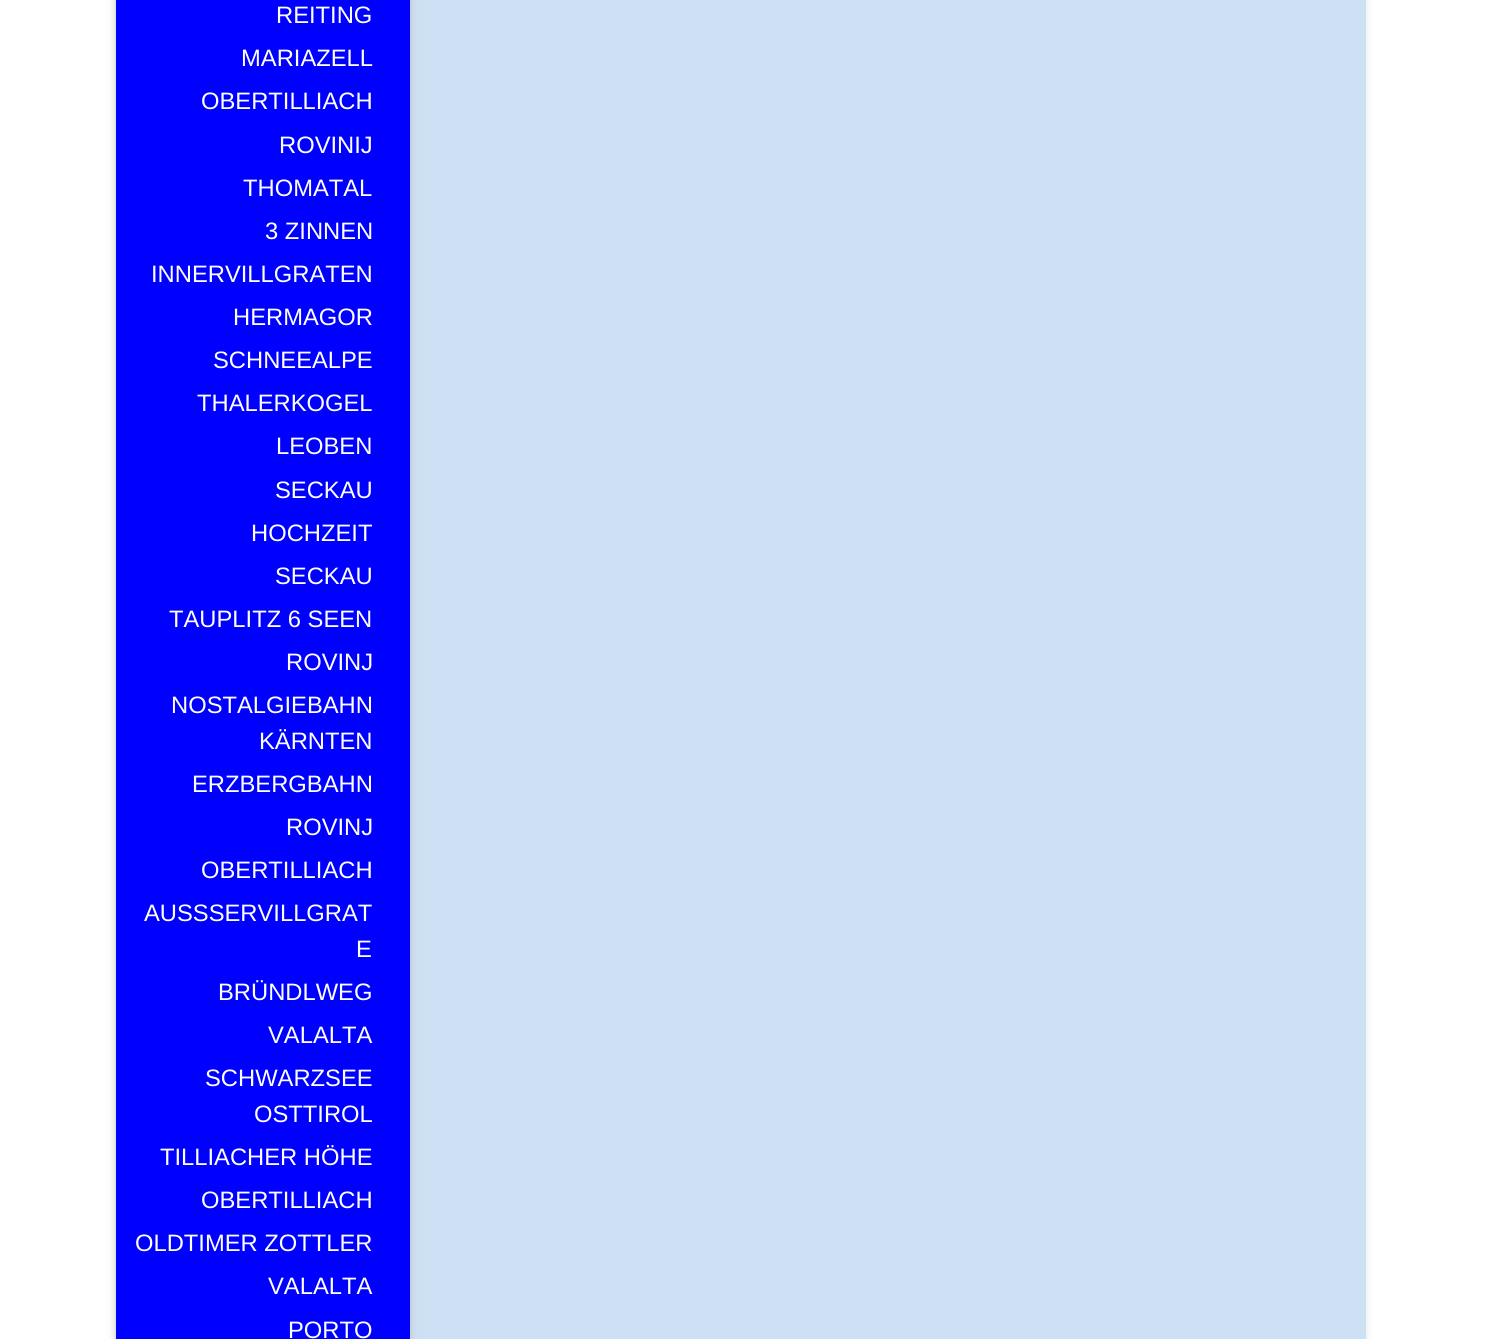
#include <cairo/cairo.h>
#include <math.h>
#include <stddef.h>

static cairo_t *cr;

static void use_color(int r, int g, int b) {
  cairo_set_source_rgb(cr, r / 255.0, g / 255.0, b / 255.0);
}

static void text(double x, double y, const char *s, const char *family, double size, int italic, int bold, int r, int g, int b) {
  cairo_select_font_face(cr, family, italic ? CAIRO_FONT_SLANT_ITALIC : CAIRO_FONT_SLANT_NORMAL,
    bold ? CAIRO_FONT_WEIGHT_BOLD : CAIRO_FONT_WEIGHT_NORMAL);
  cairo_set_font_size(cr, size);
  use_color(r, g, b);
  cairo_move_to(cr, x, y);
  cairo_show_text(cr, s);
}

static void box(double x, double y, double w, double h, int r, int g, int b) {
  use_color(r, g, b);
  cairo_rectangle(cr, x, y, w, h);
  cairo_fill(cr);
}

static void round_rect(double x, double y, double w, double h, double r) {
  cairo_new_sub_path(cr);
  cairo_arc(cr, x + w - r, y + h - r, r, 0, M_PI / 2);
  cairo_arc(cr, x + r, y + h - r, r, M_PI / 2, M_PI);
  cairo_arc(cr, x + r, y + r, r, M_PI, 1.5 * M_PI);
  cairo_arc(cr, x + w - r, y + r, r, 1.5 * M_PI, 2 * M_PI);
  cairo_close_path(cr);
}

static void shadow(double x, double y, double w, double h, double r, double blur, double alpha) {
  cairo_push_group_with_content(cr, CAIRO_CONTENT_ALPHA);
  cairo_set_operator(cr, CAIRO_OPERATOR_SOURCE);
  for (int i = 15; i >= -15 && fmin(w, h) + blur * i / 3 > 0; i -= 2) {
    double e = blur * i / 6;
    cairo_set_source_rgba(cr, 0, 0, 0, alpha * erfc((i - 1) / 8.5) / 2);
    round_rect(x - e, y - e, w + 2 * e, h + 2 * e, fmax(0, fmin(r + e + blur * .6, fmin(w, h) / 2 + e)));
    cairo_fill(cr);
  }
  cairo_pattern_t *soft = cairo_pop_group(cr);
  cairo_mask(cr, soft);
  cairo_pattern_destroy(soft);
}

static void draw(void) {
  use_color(255, 255, 255);
  cairo_paint(cr);
  use_color(0, 0, 0);
  shadow(141, -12, 1225, 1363, 0, 4, 0.1);
  box(410, 0, 956, 1339, 206, 225, 244);
  use_color(191, 191, 191);
  shadow(116, -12, 294, 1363, 0, 4, 1);
  box(116, 0, 294, 1339, 0, 0, 255);
  text(276, 23, "REITING", "Liberation Sans", 23.75, 0, 0, 255, 255, 255);
  text(241, 66, "MARIAZELL", "Liberation Sans", 23.75, 0, 0, 255, 255, 255);
  text(201, 109, "OBERTILLIACH", "Liberation Sans", 23.75, 0, 0, 255, 255, 255);
  text(279, 153, "ROVINIJ", "Liberation Sans", 23.75, 0, 0, 255, 255, 255);
  text(243, 196, "THOMATAL", "Liberation Sans", 23.75, 0, 0, 255, 255, 255);
  text(265, 239, "3 ZINNEN", "Liberation Sans", 23.75, 0, 0, 255, 255, 255);
  text(151, 282, "INNERVILLGRATEN", "Liberation Sans", 23.75, 0, 0, 255, 255, 255);
  text(233, 325, "HERMAGOR", "Liberation Sans", 23.75, 0, 0, 255, 255, 255);
  text(213, 368, "SCHNEEALPE", "Liberation Sans", 23.75, 0, 0, 255, 255, 255);
  text(197, 411, "THALERKOGEL", "Liberation Sans", 23.75, 0, 0, 255, 255, 255);
  text(276, 454, "LEOBEN", "Liberation Sans", 23.75, 0, 0, 255, 255, 255);
  text(275, 498, "SECKAU", "Liberation Sans", 23.75, 0, 0, 255, 255, 255);
  text(251, 541, "HOCHZEIT", "Liberation Sans", 23.75, 0, 0, 255, 255, 255);
  text(275, 584, "SECKAU", "Liberation Sans", 23.75, 0, 0, 255, 255, 255);
  text(169, 627, "TAUPLITZ 6 SEEN", "Liberation Sans", 23.75, 0, 0, 255, 255, 255);
  text(286, 670, "ROVINJ", "Liberation Sans", 23.75, 0, 0, 255, 255, 255);
  text(171, 713, "NOSTALGIEBAHN", "Liberation Sans", 23.75, 0, 0, 255, 255, 255);
  text(259, 749, "KÄRNTEN", "Liberation Sans", 23.75, 0, 0, 255, 255, 255);
  text(192, 792, "ERZBERGBAHN", "Liberation Sans", 23.75, 0, 0, 255, 255, 255);
  text(286, 835, "ROVINJ", "Liberation Sans", 23.75, 0, 0, 255, 255, 255);
  text(201, 878, "OBERTILLIACH", "Liberation Sans", 23.75, 0, 0, 255, 255, 255);
  text(144, 921, "AUSSSERVILLGRAT", "Liberation Sans", 23.75, 0, 0, 255, 255, 255);
  text(356, 957, "E", "Liberation Sans", 23.75, 0, 0, 255, 255, 255);
  text(218, 1000, "BRÜNDLWEG", "Liberation Sans", 23.75, 0, 0, 255, 255, 255);
  text(268, 1043, "VALALTA", "Liberation Sans", 23.75, 0, 0, 255, 255, 255);
  text(205, 1086, "SCHWARZSEE", "Liberation Sans", 23.75, 0, 0, 255, 255, 255);
  text(254, 1122, "OSTTIROL", "Liberation Sans", 23.75, 0, 0, 255, 255, 255);
  text(160, 1165, "TILLIACHER HÖHE", "Liberation Sans", 23.75, 0, 0, 255, 255, 255);
  text(201, 1208, "OBERTILLIACH", "Liberation Sans", 23.75, 0, 0, 255, 255, 255);
  text(135, 1251, "OLDTIMER ZOTTLER", "Liberation Sans", 23.75, 0, 0, 255, 255, 255);
  text(268, 1294, "VALALTA", "Liberation Sans", 23.75, 0, 0, 255, 255, 255);
  text(288, 1338, "PORTO", "Liberation Sans", 23.75, 0, 0, 255, 255, 255);
}

int main(void) {
  cairo_surface_t *surface = cairo_image_surface_create(CAIRO_FORMAT_RGB24, 1507, 1339);
  cr = cairo_create(surface);
  cairo_font_options_t *options = cairo_font_options_create();
  cairo_font_options_set_hint_metrics(options, CAIRO_HINT_METRICS_OFF);
  cairo_font_options_set_hint_style(options, CAIRO_HINT_STYLE_NONE);
  cairo_set_font_options(cr, options);
  cairo_set_miter_limit(cr, 4);
  draw();
  cairo_surface_write_to_png(surface, "out.png");
  cairo_font_options_destroy(options);
  cairo_destroy(cr);
  cairo_surface_destroy(surface);
  return 0;
}
